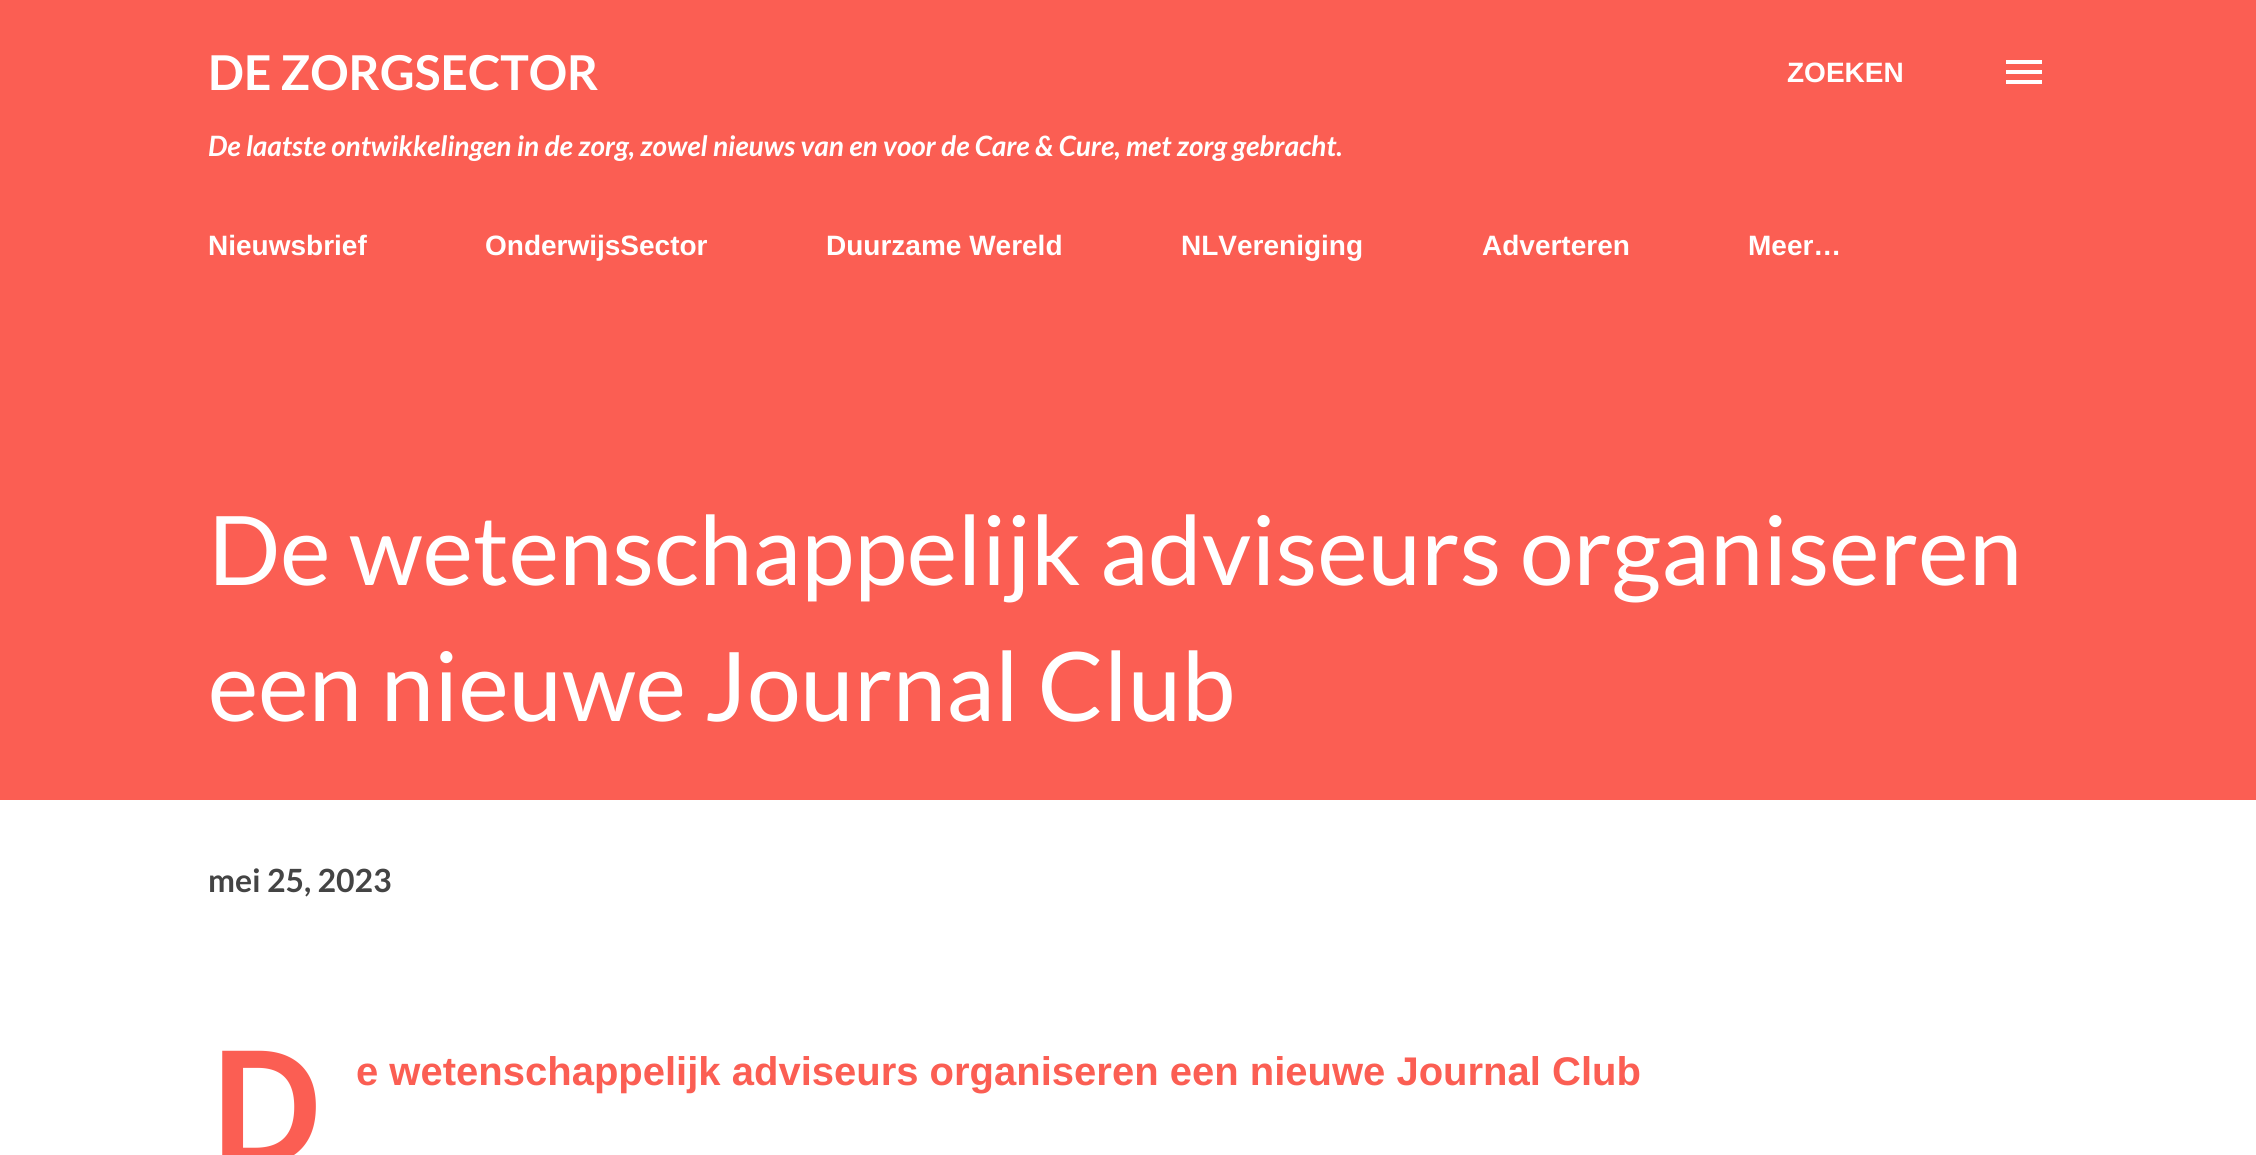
#include <cairo/cairo.h>
#include <math.h>
#include <stddef.h>

static cairo_t *cr;

static void use_color(int r, int g, int b) {
  cairo_set_source_rgb(cr, r / 255.0, g / 255.0, b / 255.0);
}

static void text(double x, double y, const char *s, const char *family, double size, int italic, int bold, int r, int g, int b) {
  cairo_select_font_face(cr, family, italic ? CAIRO_FONT_SLANT_ITALIC : CAIRO_FONT_SLANT_NORMAL,
    bold ? CAIRO_FONT_WEIGHT_BOLD : CAIRO_FONT_WEIGHT_NORMAL);
  cairo_set_font_size(cr, size);
  use_color(r, g, b);
  cairo_move_to(cr, x, y);
  cairo_show_text(cr, s);
}

static void box(double x, double y, double w, double h, int r, int g, int b) {
  use_color(r, g, b);
  cairo_rectangle(cr, x, y, w, h);
  cairo_fill(cr);
}

static void picture(const char *path, double x, double y, double w, double h) {
  cairo_surface_t *image = cairo_image_surface_create_from_png(path);
  cairo_save(cr);
  cairo_set_source_surface(cr, image, x, y);
  cairo_rectangle(cr, x, y, w, h);
  cairo_fill(cr);
  cairo_restore(cr);
  cairo_surface_destroy(image);
}

static void draw(void) {
  use_color(255, 255, 255);
  cairo_paint(cr);
  box(0, 0, 2256, 800, 251, 94, 83);
  picture("img_01.png", 2006, 60, 36, 24);
  text(208, 90, "DE ZORGSECTOR", "Lato", 48, 0, 1, 255, 255, 255);
  text(208, 156, "De laatste ontwikkelingen in de zorg, zowel nieuws van en voor de Care & Cure, met zorg gebracht.", "Lato", 28, 1, 1, 255, 255, 255);
  text(1787, 82, "ZOEKEN", "Liberation Sans", 28, 0, 1, 255, 255, 255);
  text(208, 255, "Nieuwsbrief", "Liberation Sans", 28, 0, 1, 255, 255, 255);
  text(485, 255, "OnderwijsSector", "Liberation Sans", 28, 0, 1, 255, 255, 255);
  text(826, 255, "Duurzame Wereld", "Liberation Sans", 28, 0, 1, 255, 255, 255);
  text(1181, 255, "NLVereniging", "Liberation Sans", 28, 0, 1, 255, 255, 255);
  text(1482, 255, "Adverteren", "Liberation Sans", 28, 0, 1, 255, 255, 255);
  text(1748, 255, "Meer…", "Liberation Sans", 28, 0, 1, 255, 255, 255);
  text(208, 585, "De wetenschappelijk adviseurs organiseren", "Lato", 96, 0, 0, 255, 255, 255);
  text(208, 721, "een nieuwe Journal Club", "Lato", 96, 0, 0, 255, 255, 255);
  text(208, 892, "mei 25, 2023", "Lato", 32, 0, 1, 68, 68, 68);
  text(208, 1165, "D", "Noto Sans SemiBold", 160, 0, 0, 251, 94, 83);
  text(356, 1085, "e wetenschappelijk adviseurs organiseren een nieuwe Journal Club", "Liberation Sans", 40, 0, 1, 251, 94, 83);
}

int main(void) {
  cairo_surface_t *surface = cairo_image_surface_create(CAIRO_FORMAT_RGB24, 2256, 1155);
  cr = cairo_create(surface);
  cairo_font_options_t *options = cairo_font_options_create();
  cairo_font_options_set_hint_metrics(options, CAIRO_HINT_METRICS_OFF);
  cairo_font_options_set_hint_style(options, CAIRO_HINT_STYLE_NONE);
  cairo_set_font_options(cr, options);
  cairo_set_miter_limit(cr, 4);
  draw();
  cairo_surface_write_to_png(surface, "out.png");
  cairo_font_options_destroy(options);
  cairo_destroy(cr);
  cairo_surface_destroy(surface);
  return 0;
}
